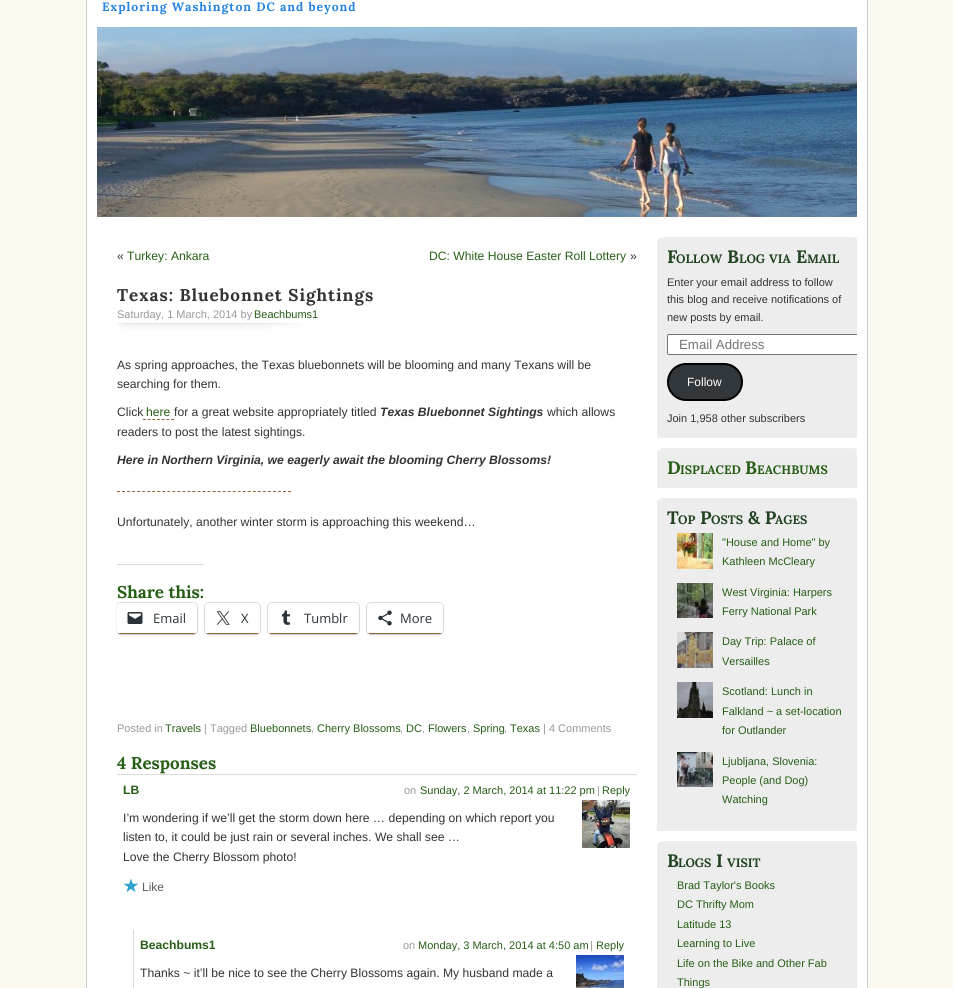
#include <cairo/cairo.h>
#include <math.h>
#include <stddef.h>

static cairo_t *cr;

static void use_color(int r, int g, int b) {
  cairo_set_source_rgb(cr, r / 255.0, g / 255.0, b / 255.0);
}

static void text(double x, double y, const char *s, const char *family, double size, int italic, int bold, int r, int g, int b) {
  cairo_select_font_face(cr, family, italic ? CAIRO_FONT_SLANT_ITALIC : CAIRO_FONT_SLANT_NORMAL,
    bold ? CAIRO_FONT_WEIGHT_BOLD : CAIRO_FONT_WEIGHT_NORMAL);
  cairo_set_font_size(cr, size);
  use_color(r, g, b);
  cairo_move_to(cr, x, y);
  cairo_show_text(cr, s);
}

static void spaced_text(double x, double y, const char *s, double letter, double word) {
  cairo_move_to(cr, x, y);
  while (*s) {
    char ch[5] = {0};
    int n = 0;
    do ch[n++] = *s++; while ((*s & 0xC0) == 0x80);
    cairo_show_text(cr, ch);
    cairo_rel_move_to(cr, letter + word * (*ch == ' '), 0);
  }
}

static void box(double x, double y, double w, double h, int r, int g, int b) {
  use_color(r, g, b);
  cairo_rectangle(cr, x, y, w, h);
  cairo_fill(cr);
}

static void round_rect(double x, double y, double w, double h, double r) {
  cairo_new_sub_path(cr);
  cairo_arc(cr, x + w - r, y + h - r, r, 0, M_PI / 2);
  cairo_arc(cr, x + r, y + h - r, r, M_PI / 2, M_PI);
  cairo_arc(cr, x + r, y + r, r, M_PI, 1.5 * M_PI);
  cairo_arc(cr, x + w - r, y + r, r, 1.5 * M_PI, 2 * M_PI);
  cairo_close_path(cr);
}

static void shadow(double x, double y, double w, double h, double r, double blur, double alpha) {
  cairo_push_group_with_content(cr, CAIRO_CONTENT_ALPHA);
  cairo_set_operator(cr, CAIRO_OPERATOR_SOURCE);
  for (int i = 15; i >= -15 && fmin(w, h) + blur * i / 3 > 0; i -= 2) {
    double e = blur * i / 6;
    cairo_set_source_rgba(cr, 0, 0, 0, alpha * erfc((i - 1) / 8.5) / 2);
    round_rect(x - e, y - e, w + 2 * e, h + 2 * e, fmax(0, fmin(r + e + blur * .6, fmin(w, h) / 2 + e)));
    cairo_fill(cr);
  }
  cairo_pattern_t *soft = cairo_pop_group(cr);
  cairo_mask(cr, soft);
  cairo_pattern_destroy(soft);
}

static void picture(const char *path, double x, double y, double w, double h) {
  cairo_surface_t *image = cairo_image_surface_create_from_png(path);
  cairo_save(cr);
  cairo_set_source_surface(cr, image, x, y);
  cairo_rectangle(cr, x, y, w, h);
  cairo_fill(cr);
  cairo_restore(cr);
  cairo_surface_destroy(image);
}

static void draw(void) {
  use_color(249, 249, 240);
  cairo_paint(cr);
  use_color(255, 255, 255);
  cairo_rectangle(cr, 86.5, -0.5, 781, 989);
  cairo_fill_preserve(cr);
  use_color(204, 204, 204);
  cairo_set_line_width(cr, 1);
  cairo_stroke(cr);
  picture("img_01.png", 97, 27, 760, 190);
  picture("img_02.png", 117, 322, 185, 7);
  cairo_new_path(cr);
  cairo_move_to(cr, 143, 419.5);
  cairo_line_to(cr, 174, 419.5);
  use_color(153, 102, 51);
  cairo_set_dash(cr, (double[]){3, 1.67}, 2, 0);
  cairo_stroke(cr);
  cairo_new_path(cr);
  cairo_move_to(cr, 117, 491.5);
  cairo_line_to(cr, 291, 491.5);
  cairo_set_dash(cr, (double[]){3, 2.03}, 2, 0);
  cairo_stroke(cr);
  box(117, 564, 87, 1, 220, 220, 222);
  cairo_save(cr);
  cairo_rectangle(cr, 117, 347, 520, 361);
  cairo_clip(cr);
  round_rect(116.5, 602.5, 81, 32, 4.5);
  use_color(224, 224, 224);
  cairo_set_dash(cr, NULL, 0, 0);
  cairo_stroke(cr);
  cairo_restore(cr);
  use_color(0, 0, 0);
  shadow(117, 604, 80, 31, 4, 1, 0.12);
  use_color(255, 255, 255);
  round_rect(117, 603, 80, 31, 4);
  cairo_fill(cr);
  box(119, 633, 76, 1, 153, 102, 51);
  picture("img_03.png", 127, 612, 16, 12);
  round_rect(204.5, 602.5, 56, 32, 4.5);
  use_color(224, 224, 224);
  cairo_set_dash(cr, NULL, 0, 0);
  cairo_stroke(cr);
  use_color(0, 0, 0);
  shadow(205, 604, 55, 31, 4, 1, 0.12);
  use_color(255, 255, 255);
  round_rect(205, 603, 55, 31, 4);
  cairo_fill(cr);
  box(207, 633, 51, 1, 153, 102, 51);
  picture("img_04.png", 216, 611, 14, 14);
  round_rect(267.5, 602.5, 92, 32, 4.5);
  use_color(224, 224, 224);
  cairo_stroke(cr);
  use_color(0, 0, 0);
  shadow(268, 604, 91, 31, 4, 1, 0.12);
  use_color(255, 255, 255);
  round_rect(268, 603, 91, 31, 4);
  cairo_fill(cr);
  box(270, 633, 87, 1, 153, 102, 51);
  picture("img_05.png", 281, 610, 10, 15);
  round_rect(366.5, 602.5, 77, 32, 4.5);
  use_color(224, 224, 224);
  cairo_stroke(cr);
  use_color(0, 0, 0);
  shadow(367, 604, 76, 31, 4, 1, 0.12);
  use_color(255, 255, 255);
  round_rect(367, 603, 76, 31, 4);
  cairo_fill(cr);
  box(369, 633, 72, 1, 153, 102, 51);
  picture("img_06.png", 378, 610, 14, 16);
  box(117, 774, 520, 1, 221, 221, 221);
  picture("img_07.png", 582, 800, 48, 48);
  picture("img_08.png", 123, 878, 16, 15);
  box(133, 930, 1, 58, 221, 221, 221);
  picture("img_09.png", 576, 955, 48, 33);
  box(657, 240, 200, 198, 237, 237, 237);
  picture("img_10.png", 657, 237, 200, 3);
  use_color(255, 255, 255);
  cairo_new_path(cr);
  cairo_move_to(cr, 669, 334);
  cairo_line_to(cr, 857, 334);
  cairo_line_to(cr, 857, 355);
  cairo_line_to(cr, 669, 355);
  cairo_curve_to(cr, 668, 355, 667, 354, 667, 353);
  cairo_line_to(cr, 667, 336);
  cairo_curve_to(cr, 667, 335, 668, 334, 669, 334);
  cairo_close_path(cr);
  cairo_fill(cr);
  cairo_save(cr);
  cairo_rectangle(cr, 657, 237, 200, 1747);
  cairo_clip(cr);
  round_rect(667.5, 334.5, 194, 20, 1.5);
  use_color(118, 118, 118);
  cairo_stroke(cr);
  cairo_restore(cr);
  use_color(50, 55, 60);
  round_rect(668, 364, 74, 36, 18);
  cairo_fill_preserve(cr);
  use_color(0, 0, 0);
  cairo_set_line_width(cr, 2);
  cairo_stroke(cr);
  box(657, 451, 200, 37, 237, 237, 237);
  picture("img_10.png", 657, 448, 200, 3);
  box(657, 501, 200, 330, 237, 237, 237);
  picture("img_10.png", 657, 498, 200, 3);
  picture("img_11.png", 677, 533, 36, 36);
  picture("img_12.png", 677, 583, 36, 35);
  picture("img_13.png", 677, 632, 36, 36);
  picture("img_14.png", 677, 682, 36, 36);
  picture("img_15.png", 677, 752, 36, 35);
  box(657, 844, 200, 144, 237, 237, 237);
  picture("img_10.png", 657, 841, 200, 3);
  cairo_select_font_face(cr, "Lora", CAIRO_FONT_SLANT_NORMAL, CAIRO_FONT_WEIGHT_BOLD);
  cairo_set_font_size(cr, 12.15);
  use_color(38, 131, 224);
  spaced_text(102, 11, "Exploring Washington DC and beyond", 1, 0);
  text(117, 260, "«", "Liberation Sans", 12.15, 0, 0, 51, 51, 51);
  text(127, 260, "Turkey: Ankara", "Liberation Sans", 12.15, 0, 0, 38, 94, 21);
  text(429, 260, "DC: White House Easter Roll Lottery", "Liberation Sans", 12.15, 0, 0, 38, 94, 21);
  text(630, 260, "»", "Liberation Sans", 12.15, 0, 0, 51, 51, 51);
  cairo_save(cr);
  cairo_rectangle(cr, 117, 237, 520, 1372);
  cairo_clip(cr);
  cairo_select_font_face(cr, "Lora", CAIRO_FONT_SLANT_NORMAL, CAIRO_FONT_WEIGHT_BOLD);
  cairo_set_font_size(cr, 17);
  spaced_text(117, 301, "Texas: Bluebonnet Sightings", 1, 0);
  cairo_restore(cr);
  text(117, 318, "Saturday, 1 March, 2014 by", "Liberation Sans", 11, 0, 0, 153, 153, 153);
  text(254, 318, "Beachbums1", "Liberation Sans", 11, 0, 0, 38, 94, 21);
  text(117, 369, "As spring approaches, the Texas bluebonnets will be blooming and many Texans will be", "Liberation Sans", 12.15, 0, 0, 51, 51, 51);
  text(117, 388, "searching for them.", "Liberation Sans", 12.15, 0, 0, 51, 51, 51);
  text(117, 416, "Click", "Liberation Sans", 12.15, 0, 0, 51, 51, 51);
  text(146, 416, "here", "Liberation Sans", 12.15, 0, 0, 38, 94, 21);
  text(174, 416, "for a great website appropriately titled", "Liberation Sans", 12.15, 0, 0, 51, 51, 51);
  text(380, 416, "Texas Bluebonnet Sightings", "Liberation Sans", 12.15, 1, 1, 51, 51, 51);
  text(547, 416, "which allows", "Liberation Sans", 12.15, 0, 0, 51, 51, 51);
  text(117, 436, "readers to post the latest sightings.", "Liberation Sans", 12.15, 0, 0, 51, 51, 51);
  text(117, 464, "Here in Northern Virginia, we eagerly await the blooming Cherry Blossoms!", "Liberation Sans", 12.15, 1, 1, 51, 51, 51);
  text(117, 526, "Unfortunately, another winter storm is approaching this weekend…", "Liberation Sans", 12.15, 0, 0, 51, 51, 51);
  text(117, 598, "Share this:", "Lora", 17, 0, 1, 38, 94, 21);
  text(153, 623, "Email", "Open Sans", 13, 0, 0, 44, 51, 56);
  text(241, 623, "X", "Open Sans", 13, 0, 0, 44, 51, 56);
  text(304, 623, "Tumblr", "Open Sans", 13, 0, 0, 44, 51, 56);
  text(400, 623, "More", "Open Sans", 13, 0, 0, 44, 51, 56);
  text(117, 732, "Posted in", "Liberation Sans", 11, 0, 0, 153, 153, 153);
  text(165, 732, "Travels", "Liberation Sans", 11, 0, 0, 38, 94, 21);
  text(204, 732, "| Tagged", "Liberation Sans", 11, 0, 0, 153, 153, 153);
  text(250, 732, "Bluebonnets", "Liberation Sans", 11, 0, 0, 38, 94, 21);
  text(311, 732, ",", "Liberation Sans", 11, 0, 0, 153, 153, 153);
  text(317, 732, "Cherry Blossoms", "Liberation Sans", 11, 0, 0, 38, 94, 21);
  text(400, 732, ",", "Liberation Sans", 11, 0, 0, 153, 153, 153);
  text(406, 732, "DC", "Liberation Sans", 11, 0, 0, 38, 94, 21);
  text(422, 732, ",", "Liberation Sans", 11, 0, 0, 153, 153, 153);
  text(428, 732, "Flowers", "Liberation Sans", 11, 0, 0, 38, 94, 21);
  text(467, 732, ",", "Liberation Sans", 11, 0, 0, 153, 153, 153);
  text(473, 732, "Spring", "Liberation Sans", 11, 0, 0, 38, 94, 21);
  text(504, 732, ",", "Liberation Sans", 11, 0, 0, 153, 153, 153);
  text(510, 732, "Texas", "Liberation Sans", 11, 0, 0, 38, 94, 21);
  text(543, 732, "| 4 Comments", "Liberation Sans", 11, 0, 0, 153, 153, 153);
  text(117, 769, "4 Responses", "Lora", 17, 0, 1, 38, 94, 21);
  text(123, 794, "LB", "Liberation Sans", 12.15, 0, 1, 38, 94, 21);
  text(404, 794, "on", "Liberation Sans", 11, 0, 0, 153, 153, 153);
  text(420, 794, "Sunday, 2 March, 2014 at 11:22 pm", "Liberation Sans", 11, 0, 0, 38, 94, 21);
  text(597, 794, "|", "Liberation Sans", 11, 0, 0, 153, 153, 153);
  text(602, 794, "Reply", "Liberation Sans", 11, 0, 0, 38, 94, 21);
  text(123, 822, "I’m wondering if we’ll get the storm down here … depending on which report you", "Liberation Sans", 12.15, 0, 0, 51, 51, 51);
  text(123, 841, "listen to, it could be just rain or several inches. We shall see …", "Liberation Sans", 12.15, 0, 0, 51, 51, 51);
  text(123, 861, "Love the Cherry Blossom photo!", "Liberation Sans", 12.15, 0, 0, 51, 51, 51);
  text(142, 891, "Like", "Liberation Sans", 12, 0, 0, 92, 92, 92);
  text(140, 949, "Beachbums1", "Liberation Sans", 12.15, 0, 1, 38, 94, 21);
  text(403, 949, "on", "Liberation Sans", 11, 0, 0, 153, 153, 153);
  text(418, 949, "Monday, 3 March, 2014 at 4:50 am", "Liberation Sans", 11, 0, 0, 38, 94, 21);
  text(590, 949, "|", "Liberation Sans", 11, 0, 0, 153, 153, 153);
  text(596, 949, "Reply", "Liberation Sans", 11, 0, 0, 38, 94, 21);
  text(140, 977, "Thanks ~ it’ll be nice to see the Cherry Blossoms again. My husband made a", "Liberation Sans", 12.15, 0, 0, 51, 51, 51);
  text(667, 263, "F", "Lora", 18, 0, 1, 34, 68, 34);
  text(676, 263, "OLLOW", "Lora", 12.25, 0, 1, 34, 68, 34);
  text(727, 263, "B", "Lora", 18, 0, 1, 34, 68, 34);
  text(739, 263, "LOG", "Lora", 12.25, 0, 1, 34, 68, 34);
  text(769, 263, "VIA", "Lora", 12.25, 0, 1, 34, 68, 34);
  text(796, 263, "E", "Lora", 18, 0, 1, 34, 68, 34);
  text(807, 263, "MAIL", "Lora", 12.25, 0, 1, 34, 68, 34);
  text(667, 286, "Enter your email address to follow", "Liberation Sans", 11, 0, 0, 51, 51, 51);
  text(667, 303, "this blog and receive notifications of", "Liberation Sans", 11, 0, 0, 51, 51, 51);
  text(667, 321, "new posts by email.", "Liberation Sans", 11, 0, 0, 51, 51, 51);
  text(679, 349, "Email Address", "Liberation Sans", 13.25, 0, 0, 117, 117, 117);
  text(687, 386, "Follow", "Liberation Sans", 12, 0, 0, 255, 255, 255);
  text(667, 422, "Join 1,958 other subscribers", "Liberation Sans", 11, 0, 0, 51, 51, 51);
  text(667, 474, "D", "Lora", 18, 0, 1, 38, 94, 21);
  text(680, 474, "ISPLACED", "Lora", 12.25, 0, 1, 38, 94, 21);
  text(745, 474, "B", "Lora", 18, 0, 1, 38, 94, 21);
  text(757, 474, "EACHBUMS", "Lora", 12.25, 0, 1, 38, 94, 21);
  text(667, 524, "T", "Lora", 18, 0, 1, 34, 68, 34);
  text(678, 524, "OP", "Lora", 12.25, 0, 1, 34, 68, 34);
  text(700, 524, "P", "Lora", 18, 0, 1, 34, 68, 34);
  text(711, 524, "OSTS", "Lora", 12.25, 0, 1, 34, 68, 34);
  text(748, 524, "& P", "Lora", 18, 0, 1, 34, 68, 34);
  text(775, 524, "AGES", "Lora", 12.25, 0, 1, 34, 68, 34);
  text(722, 546, "\"House and Home\" by", "Liberation Sans", 11, 0, 0, 38, 94, 21);
  text(722, 565, "Kathleen McCleary", "Liberation Sans", 11, 0, 0, 38, 94, 21);
  text(722, 596, "West Virginia: Harpers", "Liberation Sans", 11, 0, 0, 38, 94, 21);
  text(722, 615, "Ferry National Park", "Liberation Sans", 11, 0, 0, 38, 94, 21);
  text(722, 645, "Day Trip: Palace of", "Liberation Sans", 11, 0, 0, 38, 94, 21);
  text(722, 665, "Versailles", "Liberation Sans", 11, 0, 0, 38, 94, 21);
  text(722, 695, "Scotland: Lunch in", "Liberation Sans", 11, 0, 0, 38, 94, 21);
  text(722, 715, "Falkland ~ a set-location", "Liberation Sans", 11, 0, 0, 38, 94, 21);
  text(722, 734, "for Outlander", "Liberation Sans", 11, 0, 0, 38, 94, 21);
  text(722, 765, "Ljubljana, Slovenia:", "Liberation Sans", 11, 0, 0, 38, 94, 21);
  text(722, 784, "People (and Dog)", "Liberation Sans", 11, 0, 0, 38, 94, 21);
  text(722, 803, "Watching", "Liberation Sans", 11, 0, 0, 38, 94, 21);
  text(667, 867, "B", "Lora", 18, 0, 1, 34, 68, 34);
  text(678, 867, "LOGS", "Lora", 12.25, 0, 1, 34, 68, 34);
  text(716, 867, "I", "Lora", 18, 0, 1, 34, 68, 34);
  text(727, 867, "VISIT", "Lora", 12.25, 0, 1, 34, 68, 34);
  text(677, 889, "Brad Taylor's Books", "Liberation Sans", 11, 0, 0, 38, 94, 21);
  text(677, 908, "DC Thrifty Mom", "Liberation Sans", 11, 0, 0, 38, 94, 21);
  text(677, 928, "Latitude 13", "Liberation Sans", 11, 0, 0, 38, 94, 21);
  text(677, 947, "Learning to Live", "Liberation Sans", 11, 0, 0, 38, 94, 21);
  text(677, 967, "Life on the Bike and Other Fab", "Liberation Sans", 11, 0, 0, 38, 94, 21);
  text(677, 986, "Things", "Liberation Sans", 11, 0, 0, 38, 94, 21);
}

int main(void) {
  cairo_surface_t *surface = cairo_image_surface_create(CAIRO_FORMAT_RGB24, 953, 988);
  cr = cairo_create(surface);
  cairo_font_options_t *options = cairo_font_options_create();
  cairo_font_options_set_hint_metrics(options, CAIRO_HINT_METRICS_OFF);
  cairo_font_options_set_hint_style(options, CAIRO_HINT_STYLE_NONE);
  cairo_set_font_options(cr, options);
  cairo_set_miter_limit(cr, 4);
  draw();
  cairo_surface_write_to_png(surface, "out.png");
  cairo_font_options_destroy(options);
  cairo_destroy(cr);
  cairo_surface_destroy(surface);
  return 0;
}
